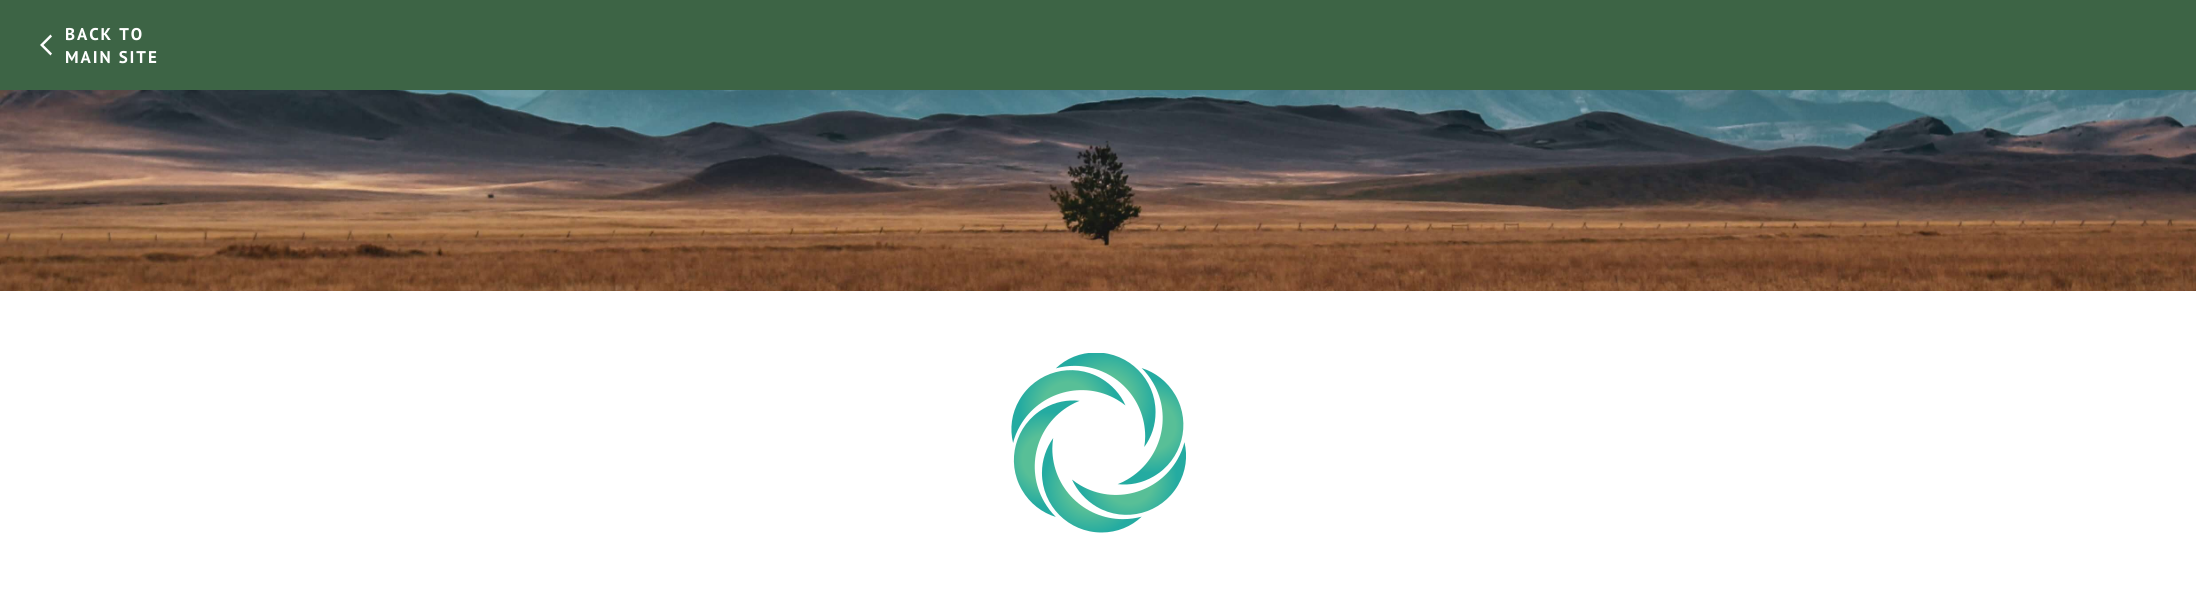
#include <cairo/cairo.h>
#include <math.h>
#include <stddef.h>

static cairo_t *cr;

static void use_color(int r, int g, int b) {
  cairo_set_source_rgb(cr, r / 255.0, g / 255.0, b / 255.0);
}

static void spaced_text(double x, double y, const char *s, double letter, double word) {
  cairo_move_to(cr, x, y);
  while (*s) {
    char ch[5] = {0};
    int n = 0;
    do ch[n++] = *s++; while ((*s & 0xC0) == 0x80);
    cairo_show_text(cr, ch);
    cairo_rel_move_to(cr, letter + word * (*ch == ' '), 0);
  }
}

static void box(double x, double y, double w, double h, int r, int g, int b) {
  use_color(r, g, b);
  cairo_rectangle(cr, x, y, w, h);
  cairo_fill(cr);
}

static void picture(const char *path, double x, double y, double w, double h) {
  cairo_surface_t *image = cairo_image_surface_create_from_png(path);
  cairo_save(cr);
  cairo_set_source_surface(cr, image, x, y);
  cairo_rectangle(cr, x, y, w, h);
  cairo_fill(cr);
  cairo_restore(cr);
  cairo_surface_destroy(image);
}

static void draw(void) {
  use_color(61, 100, 69);
  cairo_paint(cr);
  use_color(255, 255, 255);
  cairo_new_path(cr);
  cairo_move_to(cr, 52, 36.5);
  cairo_line_to(cr, 50.5, 34.5);
  cairo_line_to(cr, 40, 45);
  cairo_line_to(cr, 50.5, 55.5);
  cairo_line_to(cr, 52, 53.5);
  cairo_line_to(cr, 43.5, 45);
  cairo_close_path(cr);
  cairo_fill(cr);
  picture("img_01.png", 0, 90, 2196, 201);
  box(0, 291, 2196, 319, 255, 255, 255);
  picture("img_02.png", 1011, 353, 175, 180);
  cairo_select_font_face(cr, "PT Sans", CAIRO_FONT_SLANT_NORMAL, CAIRO_FONT_WEIGHT_BOLD);
  cairo_set_font_size(cr, 17);
  spaced_text(65, 40, "BACK TO", 1.9, 0);
  spaced_text(65, 63, "MAIN SITE", 1.9, 0);
}

int main(void) {
  cairo_surface_t *surface = cairo_image_surface_create(CAIRO_FORMAT_RGB24, 2196, 610);
  cr = cairo_create(surface);
  cairo_font_options_t *options = cairo_font_options_create();
  cairo_font_options_set_hint_metrics(options, CAIRO_HINT_METRICS_OFF);
  cairo_font_options_set_hint_style(options, CAIRO_HINT_STYLE_NONE);
  cairo_set_font_options(cr, options);
  cairo_set_miter_limit(cr, 4);
  draw();
  cairo_surface_write_to_png(surface, "out.png");
  cairo_font_options_destroy(options);
  cairo_destroy(cr);
  cairo_surface_destroy(surface);
  return 0;
}
